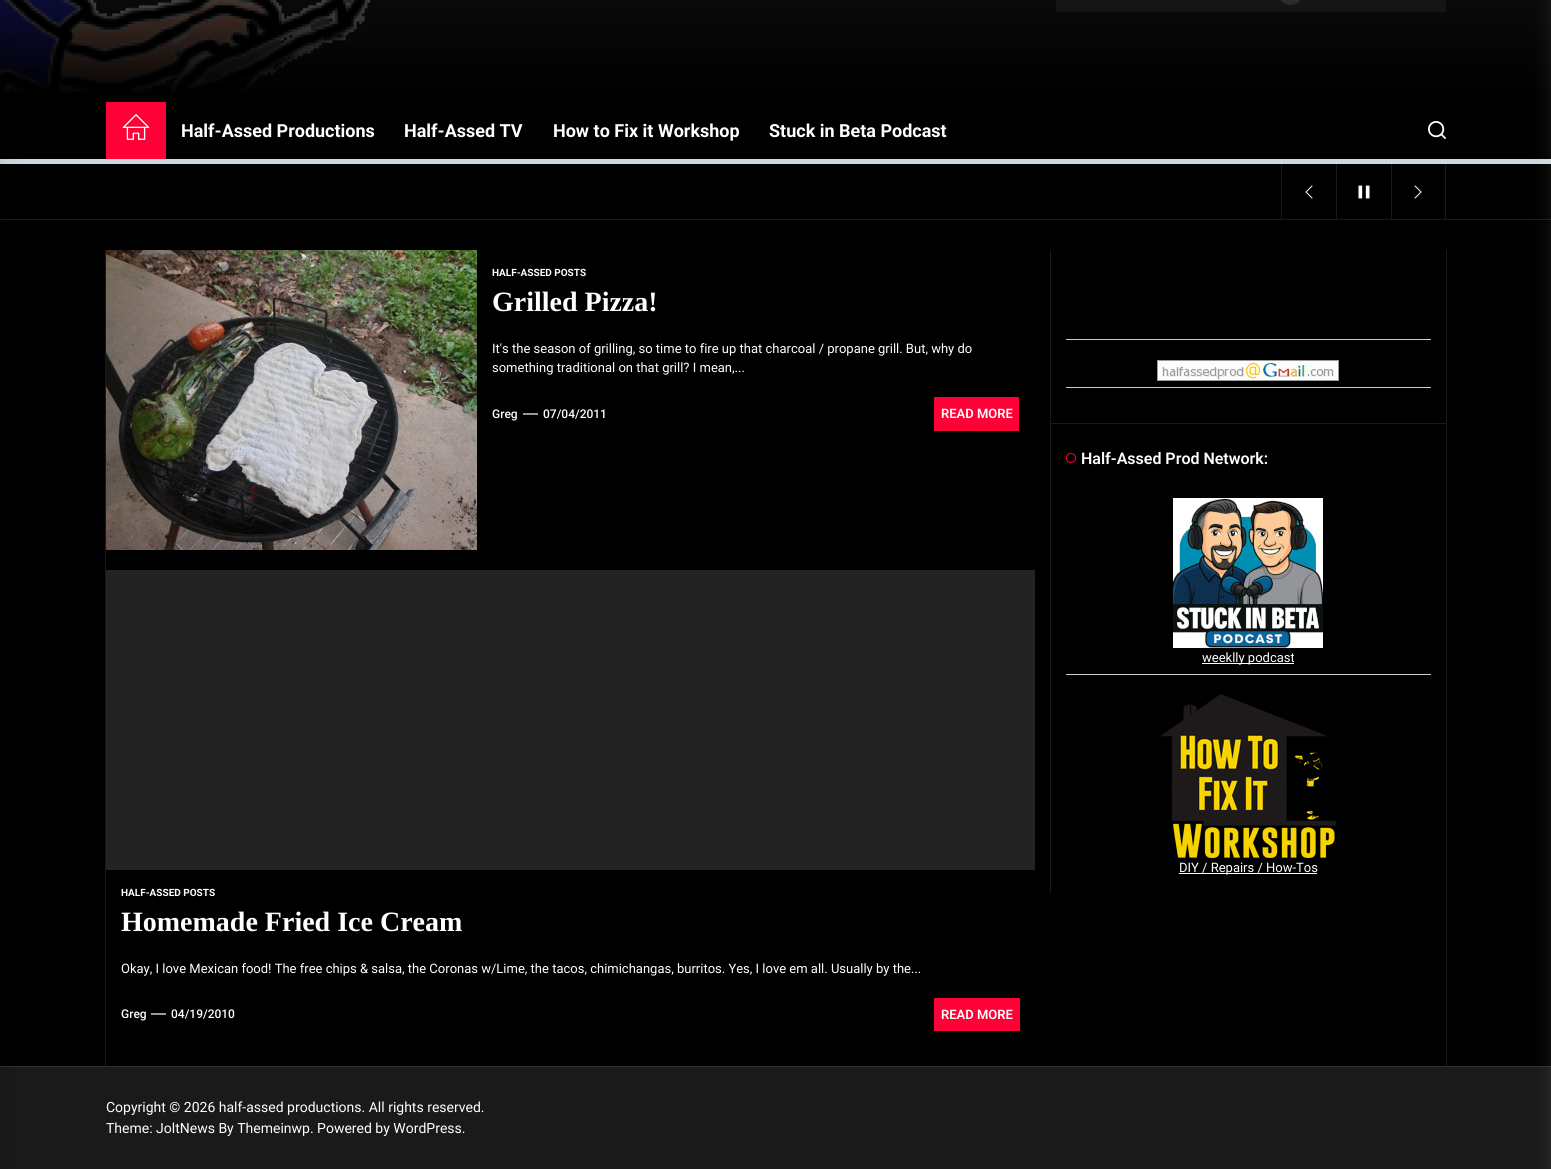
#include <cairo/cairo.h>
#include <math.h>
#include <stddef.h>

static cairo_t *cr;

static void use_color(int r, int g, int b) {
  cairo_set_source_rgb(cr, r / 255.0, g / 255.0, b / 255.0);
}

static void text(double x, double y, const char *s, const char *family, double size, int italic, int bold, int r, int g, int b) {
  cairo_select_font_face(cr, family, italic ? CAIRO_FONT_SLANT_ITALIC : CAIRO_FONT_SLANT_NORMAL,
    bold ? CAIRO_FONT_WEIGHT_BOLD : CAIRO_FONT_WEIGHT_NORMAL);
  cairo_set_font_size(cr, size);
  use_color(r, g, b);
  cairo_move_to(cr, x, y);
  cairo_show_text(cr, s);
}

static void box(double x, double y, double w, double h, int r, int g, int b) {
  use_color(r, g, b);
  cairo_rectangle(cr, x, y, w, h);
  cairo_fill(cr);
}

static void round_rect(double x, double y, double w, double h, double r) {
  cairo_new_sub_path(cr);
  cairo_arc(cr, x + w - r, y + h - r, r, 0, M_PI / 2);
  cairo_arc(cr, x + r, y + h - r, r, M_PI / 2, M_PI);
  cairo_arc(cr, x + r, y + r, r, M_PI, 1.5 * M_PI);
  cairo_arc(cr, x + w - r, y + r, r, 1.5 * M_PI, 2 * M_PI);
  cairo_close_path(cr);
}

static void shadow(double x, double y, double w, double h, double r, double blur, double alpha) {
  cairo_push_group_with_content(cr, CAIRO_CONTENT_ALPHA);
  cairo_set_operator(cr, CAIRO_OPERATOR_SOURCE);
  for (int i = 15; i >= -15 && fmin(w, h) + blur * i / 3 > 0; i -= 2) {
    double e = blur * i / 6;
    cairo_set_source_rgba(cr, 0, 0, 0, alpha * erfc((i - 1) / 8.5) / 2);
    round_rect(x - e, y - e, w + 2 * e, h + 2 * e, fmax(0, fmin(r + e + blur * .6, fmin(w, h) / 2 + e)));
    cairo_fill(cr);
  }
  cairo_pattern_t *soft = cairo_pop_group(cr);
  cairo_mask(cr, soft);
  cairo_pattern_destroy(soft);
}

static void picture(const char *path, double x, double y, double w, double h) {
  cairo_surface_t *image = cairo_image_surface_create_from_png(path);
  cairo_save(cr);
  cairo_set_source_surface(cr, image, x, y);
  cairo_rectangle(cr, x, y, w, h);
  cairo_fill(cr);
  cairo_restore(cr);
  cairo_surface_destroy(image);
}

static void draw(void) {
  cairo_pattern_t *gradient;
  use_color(0, 0, 0);
  cairo_paint(cr);
  box(0, 0, 1551, 100, 35, 35, 35);
  picture("img_01.png", 0, 0, 371, 92);
  gradient = cairo_pattern_create_linear(776, -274, 776, 102);
  cairo_pattern_add_color_stop_rgba(gradient, 0, 0, 0, 0, 0);
  cairo_pattern_add_color_stop_rgba(gradient, 1, 0, 0, 0, 1);
  cairo_set_source(cr, gradient);
  cairo_pattern_destroy(gradient);
  cairo_rectangle(cr, 0, 0, 1551, 100);
  cairo_fill(cr);
  box(0, 159, 1551, 5, 207, 216, 220);
  box(0, 219, 1551, 1, 26, 26, 26);
  box(0, 1067, 1551, 102, 26, 26, 26);
  box(0, 1066, 1551, 1, 49, 49, 49);
  use_color(0, 0, 0);
  shadow(-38, 0, 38, 1169, 0, 12.5, 0.1);
  box(1056, 0, 390, 12, 21, 21, 21);
  use_color(44, 44, 44);
  round_rect(1278, -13, 25, 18, 12.5);
  cairo_fill(cr);
  box(106, 102, 60, 57, 255, 1, 55);
  picture("img_02.png", 122, 114, 28, 26);
  picture("img_03.png", 1428, 121, 18, 18);
  box(1281, 164, 1, 55, 26, 26, 26);
  picture("img_04.png", 1305, 185, 8, 14);
  box(1336, 164, 1, 55, 26, 26, 26);
  picture("img_05.png", 1358, 185, 12, 14);
  box(1445, 164, 1, 55, 26, 26, 26);
  box(1391, 164, 1, 55, 26, 26, 26);
  picture("img_06.png", 1414, 185, 8, 14);
  use_color(255, 255, 255);
  shadow(1551, 0, 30, 1169, 0, 10, 0.1);
  box(105, 250, 1, 816, 26, 26, 26);
  picture("img_07.png", 106, 250, 371, 300);
  box(523, 413, 15, 2, 153, 153, 153);
  box(934, 397, 85, 34, 255, 1, 55);
  box(106, 570, 929, 300, 35, 35, 35);
  box(151, 1013, 15, 2, 153, 153, 153);
  box(934, 998, 86, 33, 255, 1, 55);
  box(1050, 250, 1, 643, 26, 26, 26);
  box(1051, 423, 395, 1, 26, 26, 26);
  box(1066, 339, 365, 1, 204, 204, 204);
  picture("img_08.png", 1157, 360, 182, 21);
  box(1066, 387, 365, 1, 204, 204, 204);
  cairo_arc(cr, 1071, 458, 4.5, 0, 2 * M_PI);
  use_color(255, 1, 55);
  cairo_set_line_width(cr, 1);
  cairo_stroke(cr);
  picture("img_09.png", 1173, 498, 150, 150);
  box(1202, 663, 92, 1, 255, 255, 255);
  box(1066, 674, 365, 1, 204, 204, 204);
  picture("img_10.png", 1160, 694, 176, 164);
  box(1179, 873, 138, 1, 255, 255, 255);
  box(1446, 250, 1, 816, 26, 26, 26);
  text(181, 137, "Half-Assed Productions", "Roboto", 18, 0, 1, 255, 255, 255);
  text(404, 137, "Half-Assed TV", "Roboto", 18, 0, 1, 255, 255, 255);
  text(553, 137, "How to Fix it Workshop", "Roboto", 18, 0, 1, 255, 255, 255);
  text(769, 137, "Stuck in Beta Podcast", "Roboto", 18, 0, 1, 255, 255, 255);
  text(492, 276, "HALF-ASSED POSTS", "Roboto", 10, 0, 1, 255, 255, 255);
  text(492, 311, "Grilled Pizza!", "Liberation Serif", 28, 0, 1, 255, 255, 255);
  text(492, 353, "It's the season of grilling, so time to fire up that charcoal / propane grill. But, why do", "Roboto", 13, 0, 0, 255, 255, 255);
  text(492, 372, "something traditional on that grill? I mean,...", "Roboto", 13, 0, 0, 255, 255, 255);
  text(492, 418, "Greg", "Roboto Medium", 12, 0, 0, 255, 255, 255);
  text(543, 418, "07/04/2011", "Roboto Medium", 12, 0, 0, 255, 255, 255);
  text(941, 418, "READ MORE", "Roboto SemiBold", 13, 0, 0, 255, 255, 255);
  text(121, 896, "HALF-ASSED POSTS", "Roboto", 10, 0, 1, 255, 255, 255);
  text(121, 931, "Homemade Fried Ice Cream", "Liberation Serif", 28, 0, 1, 255, 255, 255);
  text(121, 973, "Okay, I love Mexican food! The free chips & salsa, the Coronas w/Lime, the tacos, chimichangas, burritos. Yes, I love em all. Usually by the...", "Roboto", 13, 0, 0, 255, 255, 255);
  text(121, 1018, "Greg", "Roboto Medium", 12, 0, 0, 255, 255, 255);
  text(171, 1018, "04/19/2010", "Roboto Medium", 12, 0, 0, 255, 255, 255);
  text(941, 1019, "READ MORE", "Roboto SemiBold", 13, 0, 0, 255, 255, 255);
  text(1081, 464, "Half-Assed Prod Network:", "Roboto SemiBold", 16, 0, 0, 255, 255, 255);
  text(1202, 662, "weeklly podcast", "Roboto", 13, 0, 0, 255, 255, 255);
  text(1179, 872, "DIY / Repairs / How-Tos", "Roboto", 13, 0, 0, 255, 255, 255);
  text(106, 1112, "Copyright © 2026 half-assed productions. All rights reserved.", "Roboto", 14, 0, 0, 255, 255, 255);
  text(106, 1133, "Theme: JoltNews By Themeinwp. Powered by WordPress.", "Roboto", 14, 0, 0, 255, 255, 255);
}

int main(void) {
  cairo_surface_t *surface = cairo_image_surface_create(CAIRO_FORMAT_RGB24, 1551, 1169);
  cr = cairo_create(surface);
  cairo_font_options_t *options = cairo_font_options_create();
  cairo_font_options_set_hint_metrics(options, CAIRO_HINT_METRICS_OFF);
  cairo_font_options_set_hint_style(options, CAIRO_HINT_STYLE_NONE);
  cairo_set_font_options(cr, options);
  cairo_set_miter_limit(cr, 4);
  draw();
  cairo_surface_write_to_png(surface, "out.png");
  cairo_font_options_destroy(options);
  cairo_destroy(cr);
  cairo_surface_destroy(surface);
  return 0;
}
